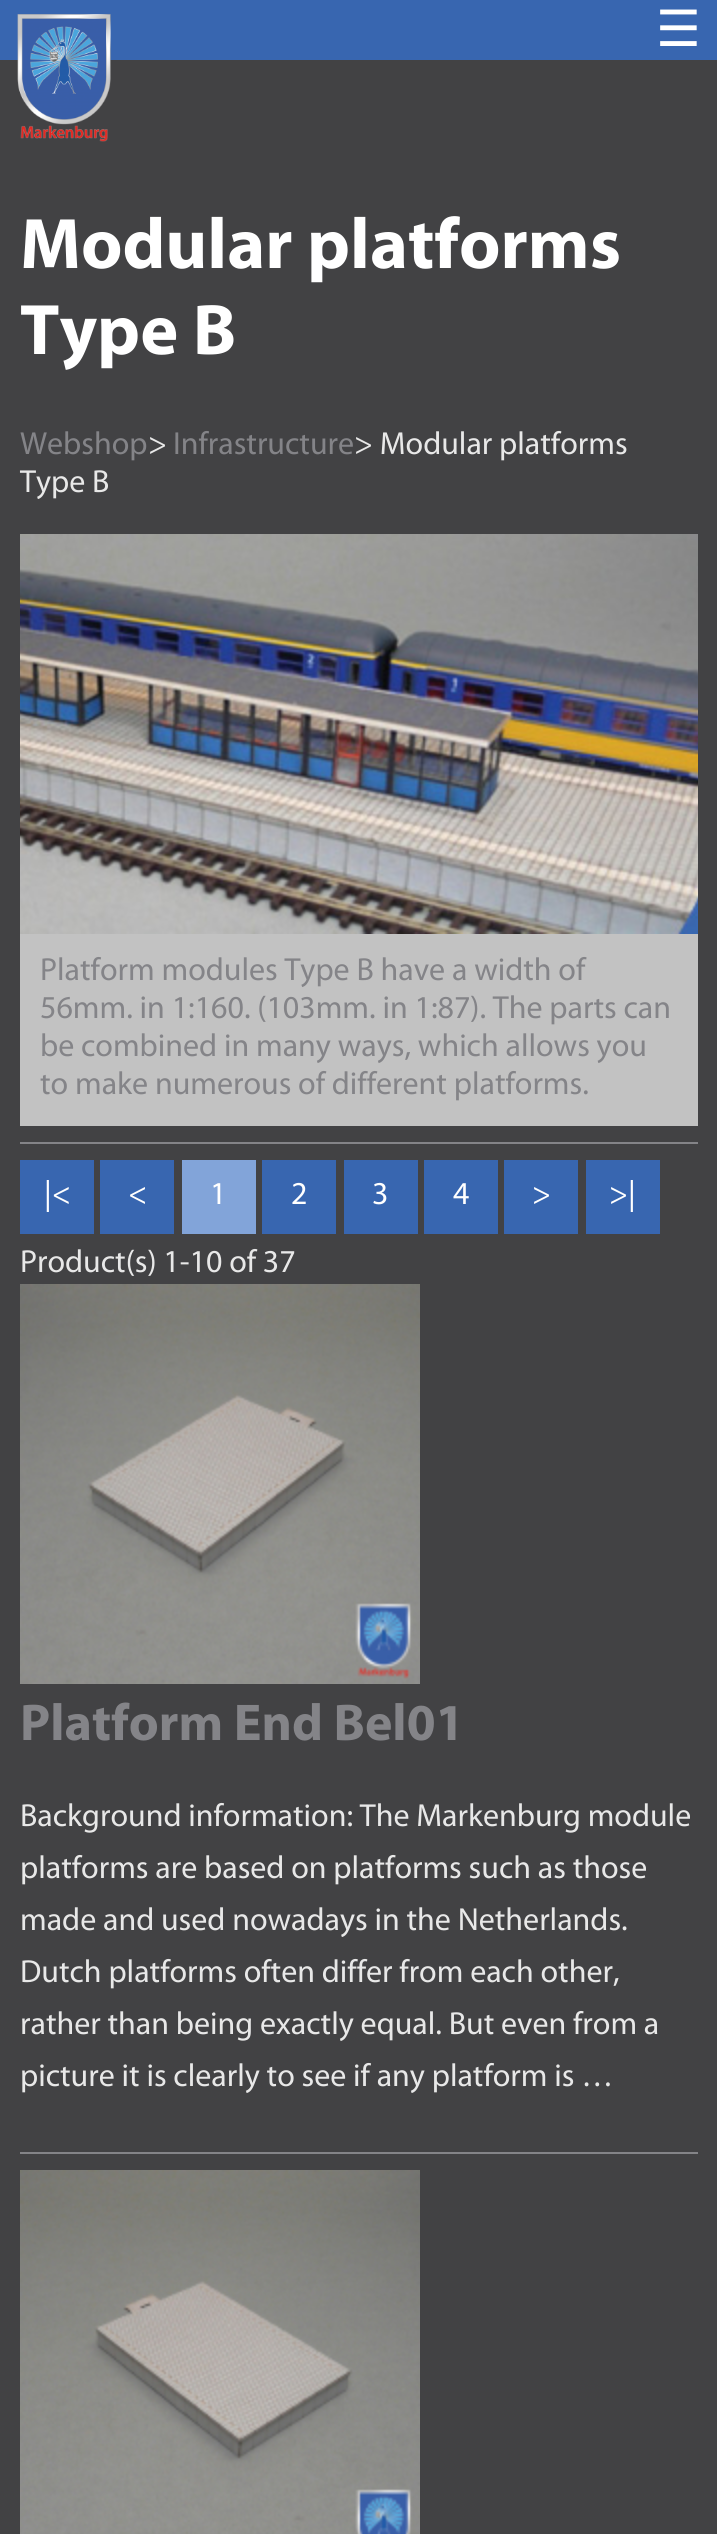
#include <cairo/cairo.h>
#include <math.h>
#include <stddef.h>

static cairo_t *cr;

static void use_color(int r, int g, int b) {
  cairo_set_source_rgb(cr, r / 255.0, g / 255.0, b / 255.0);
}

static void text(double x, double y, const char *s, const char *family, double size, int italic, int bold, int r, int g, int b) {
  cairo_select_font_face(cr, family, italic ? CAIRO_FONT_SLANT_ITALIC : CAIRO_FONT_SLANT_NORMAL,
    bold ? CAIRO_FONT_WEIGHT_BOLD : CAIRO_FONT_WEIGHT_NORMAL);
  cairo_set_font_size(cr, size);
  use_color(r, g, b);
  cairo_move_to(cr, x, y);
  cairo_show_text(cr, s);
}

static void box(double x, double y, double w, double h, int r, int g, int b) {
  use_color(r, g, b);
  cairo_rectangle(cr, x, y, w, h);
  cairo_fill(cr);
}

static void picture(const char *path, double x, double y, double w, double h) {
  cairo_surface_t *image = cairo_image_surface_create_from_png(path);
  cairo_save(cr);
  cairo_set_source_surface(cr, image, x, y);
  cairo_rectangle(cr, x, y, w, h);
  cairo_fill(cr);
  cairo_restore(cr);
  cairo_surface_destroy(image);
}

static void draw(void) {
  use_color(66, 66, 68);
  cairo_paint(cr);
  box(0, 0, 717, 60, 56, 102, 176);
  picture("img_01.png", 17, 14, 94, 128);
  box(20, 934, 678, 192, 194, 194, 194);
  picture("img_02.png", 20, 534, 678, 400);
  box(20, 1142, 678, 2, 132, 132, 136);
  box(20, 1160, 74, 74, 56, 102, 176);
  box(100, 1160, 74, 74, 56, 102, 176);
  box(182, 1160, 74, 74, 130, 164, 217);
  box(262, 1160, 74, 74, 56, 102, 176);
  box(344, 1160, 74, 74, 56, 102, 176);
  box(424, 1160, 74, 74, 56, 102, 176);
  box(504, 1160, 74, 74, 56, 102, 176);
  box(586, 1160, 74, 74, 56, 102, 176);
  picture("img_03.png", 20, 1284, 400, 400);
  box(20, 2152, 678, 2, 132, 132, 136);
  picture("img_04.png", 20, 2170, 400, 364);
  text(656, 46, "☰", "DejaVu Sans", 50, 0, 0, 255, 255, 255);
  text(20, 268, "Modular platforms", "Myriad", 72, 0, 1, 255, 255, 255);
  text(20, 354, "Type B", "Myriad", 72, 0, 1, 255, 255, 255);
  text(20, 454, "Webshop", "Myriad", 32, 0, 0, 132, 132, 136);
  text(148, 454, ">", "Myriad", 32, 0, 0, 232, 232, 232);
  text(173, 454, "Infrastructure", "Myriad", 32, 0, 0, 132, 132, 136);
  text(354, 454, "> Modular platforms", "Myriad", 32, 0, 0, 232, 232, 232);
  text(20, 492, "Type B", "Myriad", 32, 0, 0, 232, 232, 232);
  text(40, 980, "Platform modules Type B have a width of", "Myriad", 32, 0, 0, 132, 132, 136);
  text(40, 1018, "56mm. in 1:160. (103mm. in 1:87). The parts can", "Myriad", 32, 0, 0, 132, 132, 136);
  text(40, 1056, "be combined in many ways, which allows you", "Myriad", 32, 0, 0, 132, 132, 136);
  text(40, 1094, "to make numerous of different platforms.", "Myriad", 32, 0, 0, 132, 132, 136);
  text(44, 1204, "|<", "Myriad", 32, 0, 0, 255, 255, 255);
  text(128, 1204, "<", "Myriad", 32, 0, 0, 255, 255, 255);
  text(210, 1204, "1", "Myriad", 32, 0, 0, 255, 255, 255);
  text(291, 1204, "2", "Myriad", 32, 0, 0, 255, 255, 255);
  text(372, 1204, "3", "Myriad", 32, 0, 0, 255, 255, 255);
  text(453, 1204, "4", "Myriad", 32, 0, 0, 255, 255, 255);
  text(532, 1204, ">", "Myriad", 32, 0, 0, 255, 255, 255);
  text(609, 1204, ">|", "Myriad", 32, 0, 0, 255, 255, 255);
  text(20, 1272, "Product(s) 1-10 of 37", "Myriad", 32, 0, 0, 232, 232, 232);
  text(20, 1740, "Platform End Bel01", "Myriad", 52, 0, 1, 132, 132, 136);
  text(20, 1826, "Background information: The Markenburg module", "Myriad", 32, 0, 0, 232, 232, 232);
  text(20, 1878, "platforms are based on platforms such as those", "Myriad", 32, 0, 0, 232, 232, 232);
  text(20, 1930, "made and used nowadays in the Netherlands.", "Myriad", 32, 0, 0, 232, 232, 232);
  text(20, 1982, "Dutch platforms often differ from each other,", "Myriad", 32, 0, 0, 232, 232, 232);
  text(20, 2034, "rather than being exactly equal. But even from a", "Myriad", 32, 0, 0, 232, 232, 232);
  text(20, 2086, "picture it is clearly to see if any platform is …", "Myriad", 32, 0, 0, 232, 232, 232);
}

int main(void) {
  cairo_surface_t *surface = cairo_image_surface_create(CAIRO_FORMAT_RGB24, 717, 2534);
  cr = cairo_create(surface);
  cairo_font_options_t *options = cairo_font_options_create();
  cairo_font_options_set_hint_metrics(options, CAIRO_HINT_METRICS_OFF);
  cairo_font_options_set_hint_style(options, CAIRO_HINT_STYLE_NONE);
  cairo_set_font_options(cr, options);
  cairo_set_miter_limit(cr, 4);
  draw();
  cairo_surface_write_to_png(surface, "out.png");
  cairo_font_options_destroy(options);
  cairo_destroy(cr);
  cairo_surface_destroy(surface);
  return 0;
}
